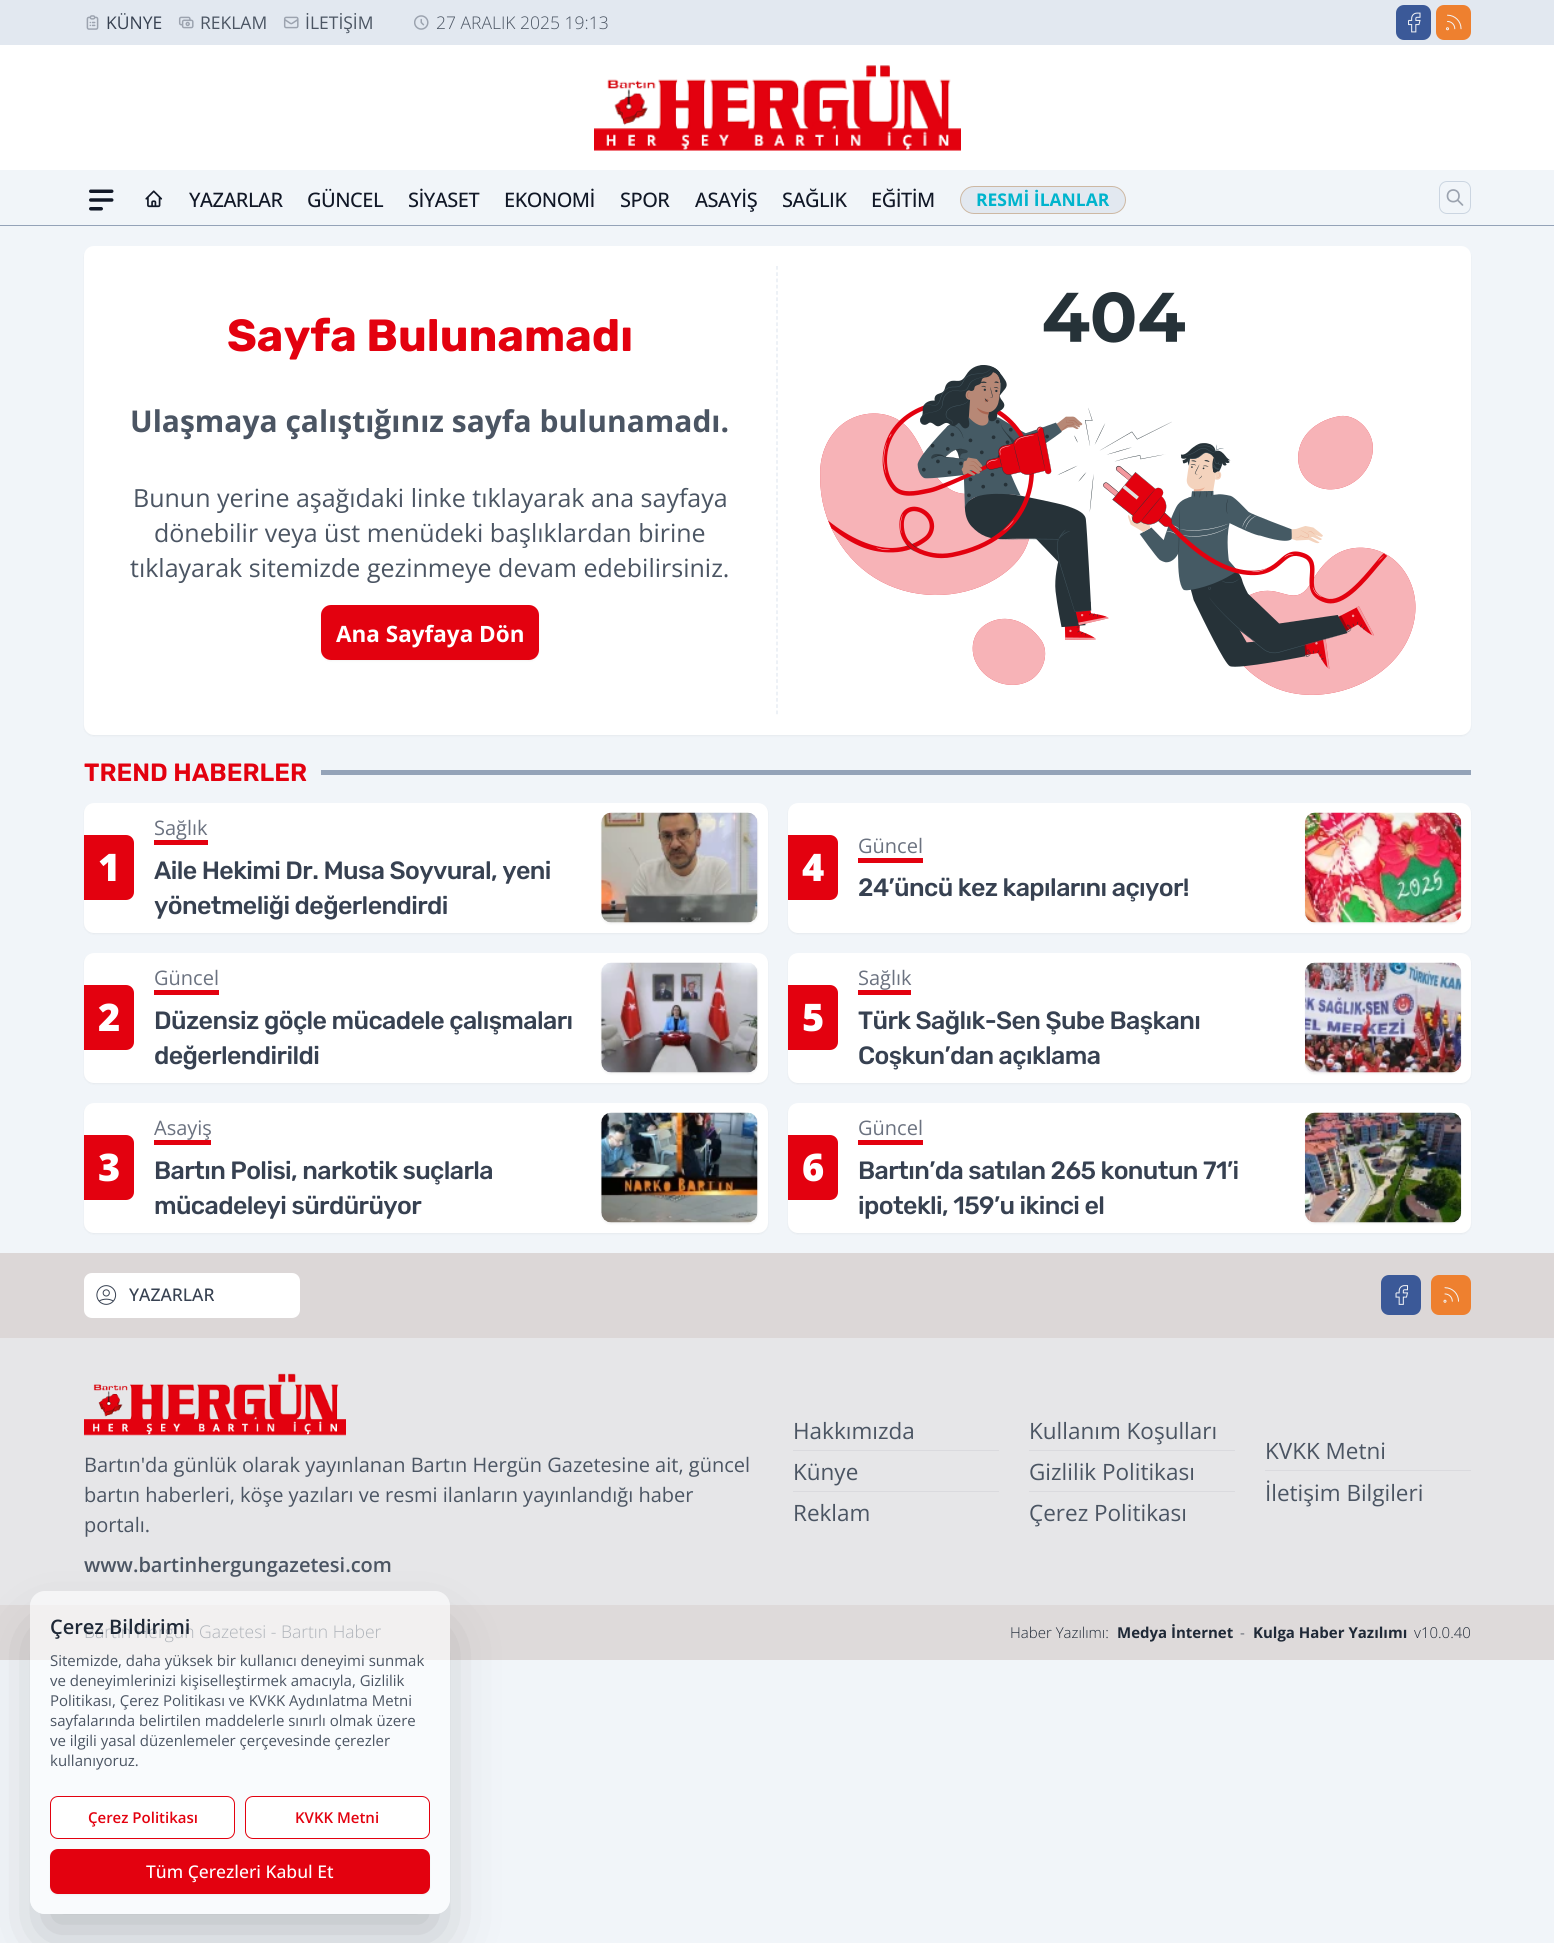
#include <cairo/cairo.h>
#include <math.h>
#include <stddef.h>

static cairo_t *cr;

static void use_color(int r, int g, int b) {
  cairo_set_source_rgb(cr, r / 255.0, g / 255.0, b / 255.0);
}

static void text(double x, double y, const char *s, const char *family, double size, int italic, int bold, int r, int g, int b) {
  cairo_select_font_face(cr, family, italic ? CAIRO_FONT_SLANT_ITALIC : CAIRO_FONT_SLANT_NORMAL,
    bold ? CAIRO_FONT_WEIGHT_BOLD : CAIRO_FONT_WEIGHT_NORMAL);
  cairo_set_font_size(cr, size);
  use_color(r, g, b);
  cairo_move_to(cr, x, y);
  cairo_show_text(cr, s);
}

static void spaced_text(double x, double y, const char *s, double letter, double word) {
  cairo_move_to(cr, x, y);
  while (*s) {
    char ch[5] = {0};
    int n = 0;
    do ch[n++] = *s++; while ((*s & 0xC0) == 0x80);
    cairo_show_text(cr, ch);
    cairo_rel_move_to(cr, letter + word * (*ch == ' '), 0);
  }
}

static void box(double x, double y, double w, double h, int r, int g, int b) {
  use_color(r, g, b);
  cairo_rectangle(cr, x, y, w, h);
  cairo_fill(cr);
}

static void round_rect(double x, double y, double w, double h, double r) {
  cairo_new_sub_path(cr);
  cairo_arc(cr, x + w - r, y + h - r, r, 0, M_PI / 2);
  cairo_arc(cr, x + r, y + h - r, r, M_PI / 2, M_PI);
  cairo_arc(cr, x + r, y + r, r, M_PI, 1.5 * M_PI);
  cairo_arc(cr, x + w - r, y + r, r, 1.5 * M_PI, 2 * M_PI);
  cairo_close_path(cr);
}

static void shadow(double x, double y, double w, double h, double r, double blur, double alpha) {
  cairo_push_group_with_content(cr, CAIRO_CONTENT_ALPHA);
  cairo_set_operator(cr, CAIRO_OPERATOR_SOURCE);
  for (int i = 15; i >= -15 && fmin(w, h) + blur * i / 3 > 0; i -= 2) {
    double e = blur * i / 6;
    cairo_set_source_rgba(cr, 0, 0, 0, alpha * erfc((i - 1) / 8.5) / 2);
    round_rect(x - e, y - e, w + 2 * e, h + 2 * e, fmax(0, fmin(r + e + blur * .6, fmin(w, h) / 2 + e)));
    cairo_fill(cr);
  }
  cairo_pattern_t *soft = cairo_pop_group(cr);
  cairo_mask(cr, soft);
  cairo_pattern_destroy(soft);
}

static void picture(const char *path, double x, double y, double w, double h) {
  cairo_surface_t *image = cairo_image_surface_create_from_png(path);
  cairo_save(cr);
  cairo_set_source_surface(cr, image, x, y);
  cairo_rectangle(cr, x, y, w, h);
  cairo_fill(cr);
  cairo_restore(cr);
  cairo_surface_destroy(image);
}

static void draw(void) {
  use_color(241, 245, 249);
  cairo_paint(cr);
  box(0, 0, 1554, 45, 226, 232, 240);
  picture("img_01.png", 86, 15, 13, 15);
  picture("img_02.png", 178, 16, 16, 13);
  picture("img_03.png", 283, 16, 16, 13);
  picture("img_04.png", 414, 15, 15, 15);
  use_color(59, 89, 152);
  round_rect(1396, 5, 35, 35, 8);
  cairo_fill(cr);
  picture("img_05.png", 1408, 12, 13, 21);
  use_color(238, 128, 47);
  round_rect(1436, 5, 35, 35, 8);
  cairo_fill(cr);
  picture("img_06.png", 1446, 14, 16, 17);
  box(0, 45, 1554, 125, 255, 255, 255);
  picture("img_07.png", 594, 65, 367, 86);
  box(0, 225, 1554, 1, 148, 163, 184);
  picture("img_08.png", 89, 189, 25, 22);
  picture("img_09.png", 145, 190, 18, 18);
  use_color(226, 232, 240);
  round_rect(960.5, 186.5, 165, 27, 13.5);
  cairo_fill_preserve(cr);
  use_color(205, 184, 163);
  cairo_set_line_width(cr, 1);
  cairo_stroke(cr);
  round_rect(1439.5, 181.5, 31, 32, 7.5);
  use_color(203, 213, 225);
  cairo_stroke(cr);
  cairo_new_path(cr);
  cairo_move_to(cr, 1462.5, 205);
  cairo_line_to(cr, 1457.5, 200);
  cairo_move_to(cr, 1459, 196);
  cairo_curve_to(cr, 1459, 203.5, 1447.5, 203.5, 1447.5, 196);
  cairo_curve_to(cr, 1447.5, 188, 1459, 188, 1459, 196);
  cairo_close_path(cr);
  use_color(156, 163, 175);
  cairo_set_line_width(cr, 1.7);
  cairo_set_line_cap(cr, CAIRO_LINE_CAP_ROUND);
  cairo_set_line_join(cr, CAIRO_LINE_JOIN_ROUND);
  cairo_stroke(cr);
  use_color(0, 0, 0);
  shadow(84, 248, 1387, 488, 10, 1, 0.05);
  use_color(255, 255, 255);
  round_rect(84, 246, 1387, 489, 10);
  cairo_fill(cr);
  cairo_new_path(cr);
  cairo_move_to(cr, 777, 266);
  cairo_line_to(cr, 777, 715);
  use_color(226, 232, 240);
  cairo_set_line_width(cr, 1.2);
  cairo_set_line_cap(cr, CAIRO_LINE_CAP_BUTT);
  cairo_set_line_join(cr, CAIRO_LINE_JOIN_MITER);
  cairo_set_dash(cr, (double[]){3.75, 2.51}, 2, 0);
  cairo_stroke(cr);
  use_color(0, 0, 0);
  shadow(321, 606, 218, 55, 10, 1, 0.05);
  use_color(227, 1, 15);
  round_rect(321, 605, 218, 55, 10);
  cairo_fill(cr);
  picture("img_10.png", 820, 292, 596, 403);
  box(321, 770, 1150, 5, 148, 163, 184);
  use_color(0, 0, 0);
  shadow(84, 804, 684, 130, 10, 1, 0.05);
  use_color(255, 255, 255);
  round_rect(84, 803, 684, 130, 10);
  cairo_fill(cr);
  use_color(227, 1, 15);
  cairo_new_path(cr);
  cairo_move_to(cr, 84, 835);
  cairo_line_to(cr, 126, 835);
  cairo_curve_to(cr, 130.5, 835, 134, 838.5, 134, 843);
  cairo_line_to(cr, 134, 892);
  cairo_curve_to(cr, 134, 896.5, 130.5, 900, 126, 900);
  cairo_line_to(cr, 84, 900);
  cairo_close_path(cr);
  cairo_fill(cr);
  box(154, 840, 54, 5, 227, 1, 15);
  use_color(0, 0, 0);
  shadow(601, 814, 157, 110, 10, 1, 0.05);
  picture("img_11.png", 601, 812, 157, 111);
  shadow(84, 954, 684, 130, 10, 1, 0.05);
  use_color(255, 255, 255);
  round_rect(84, 953, 684, 130, 10);
  cairo_fill(cr);
  use_color(227, 1, 15);
  cairo_new_path(cr);
  cairo_move_to(cr, 84, 985);
  cairo_line_to(cr, 126, 985);
  cairo_curve_to(cr, 130.5, 985, 134, 988.5, 134, 993);
  cairo_line_to(cr, 134, 1042);
  cairo_curve_to(cr, 134, 1046.5, 130.5, 1050, 126, 1050);
  cairo_line_to(cr, 84, 1050);
  cairo_close_path(cr);
  cairo_fill(cr);
  box(154, 990, 65, 5, 227, 1, 15);
  use_color(0, 0, 0);
  shadow(601, 964, 157, 110, 10, 1, 0.05);
  picture("img_12.png", 601, 962, 157, 111);
  shadow(84, 1104, 684, 130, 10, 1, 0.05);
  use_color(255, 255, 255);
  round_rect(84, 1103, 684, 130, 10);
  cairo_fill(cr);
  use_color(227, 1, 15);
  cairo_new_path(cr);
  cairo_move_to(cr, 84, 1135);
  cairo_line_to(cr, 126, 1135);
  cairo_curve_to(cr, 130.5, 1135, 134, 1138.5, 134, 1143);
  cairo_line_to(cr, 134, 1192);
  cairo_curve_to(cr, 134, 1196.5, 130.5, 1200, 126, 1200);
  cairo_line_to(cr, 84, 1200);
  cairo_close_path(cr);
  cairo_fill(cr);
  box(154, 1140, 57, 5, 227, 1, 15);
  use_color(0, 0, 0);
  shadow(601, 1114, 157, 110, 10, 1, 0.05);
  picture("img_13.png", 601, 1112, 157, 111);
  shadow(788, 804, 683, 130, 10, 1, 0.05);
  use_color(255, 255, 255);
  round_rect(788, 803, 683, 130, 10);
  cairo_fill(cr);
  use_color(227, 1, 15);
  cairo_new_path(cr);
  cairo_move_to(cr, 788, 835);
  cairo_line_to(cr, 830, 835);
  cairo_curve_to(cr, 834.5, 835, 838, 838.5, 838, 843);
  cairo_line_to(cr, 838, 892);
  cairo_curve_to(cr, 838, 896.5, 834.5, 900, 830, 900);
  cairo_line_to(cr, 788, 900);
  cairo_close_path(cr);
  cairo_fill(cr);
  box(858, 858, 65, 5, 227, 1, 15);
  use_color(0, 0, 0);
  shadow(1305, 814, 156, 110, 10, 1, 0.05);
  picture("img_14.png", 1305, 812, 157, 111);
  shadow(788, 954, 683, 130, 10, 1, 0.05);
  use_color(255, 255, 255);
  round_rect(788, 953, 683, 130, 10);
  cairo_fill(cr);
  use_color(227, 1, 15);
  cairo_new_path(cr);
  cairo_move_to(cr, 788, 985);
  cairo_line_to(cr, 830, 985);
  cairo_curve_to(cr, 834.5, 985, 838, 988.5, 838, 993);
  cairo_line_to(cr, 838, 1042);
  cairo_curve_to(cr, 838, 1046.5, 834.5, 1050, 830, 1050);
  cairo_line_to(cr, 788, 1050);
  cairo_close_path(cr);
  cairo_fill(cr);
  box(858, 990, 53, 5, 227, 1, 15);
  use_color(0, 0, 0);
  shadow(1305, 964, 156, 110, 10, 1, 0.05);
  picture("img_15.png", 1305, 962, 157, 111);
  shadow(788, 1104, 683, 130, 10, 1, 0.05);
  use_color(255, 255, 255);
  round_rect(788, 1103, 683, 130, 10);
  cairo_fill(cr);
  use_color(227, 1, 15);
  cairo_new_path(cr);
  cairo_move_to(cr, 788, 1135);
  cairo_line_to(cr, 830, 1135);
  cairo_curve_to(cr, 834.5, 1135, 838, 1138.5, 838, 1143);
  cairo_line_to(cr, 838, 1192);
  cairo_curve_to(cr, 838, 1196.5, 834.5, 1200, 830, 1200);
  cairo_line_to(cr, 788, 1200);
  cairo_close_path(cr);
  cairo_fill(cr);
  box(858, 1140, 65, 5, 227, 1, 15);
  use_color(0, 0, 0);
  shadow(1305, 1114, 156, 110, 10, 1, 0.05);
  picture("img_16.png", 1305, 1112, 157, 111);
  box(0, 1253, 1554, 85, 220, 215, 215);
  use_color(255, 255, 255);
  round_rect(84, 1273, 216, 45, 8);
  cairo_fill(cr);
  picture("img_17.png", 96, 1285, 21, 20);
  use_color(59, 89, 152);
  round_rect(1381, 1275, 40, 40, 8);
  cairo_fill(cr);
  picture("img_18.png", 1395, 1285, 14, 20);
  use_color(238, 128, 47);
  round_rect(1431, 1275, 40, 40, 8);
  cairo_fill(cr);
  picture("img_19.png", 1443, 1287, 16, 16);
  box(0, 1338, 1554, 267, 230, 230, 232);
  picture("img_20.png", 84, 1373, 262, 63);
  box(793, 1450, 206, 1, 218, 218, 222);
  box(793, 1491, 206, 1, 218, 218, 222);
  box(1029, 1450, 206, 1, 218, 218, 222);
  box(1029, 1491, 206, 1, 218, 218, 222);
  box(1265, 1470, 206, 1, 218, 218, 222);
  box(0, 1605, 1554, 55, 222, 218, 218);
  cairo_save(cr);
  cairo_set_fill_rule(cr, CAIRO_FILL_RULE_EVEN_ODD);
  cairo_new_path(cr);
  cairo_move_to(cr, 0, 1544);
  cairo_line_to(cr, 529, 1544);
  cairo_line_to(cr, 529, 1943);
  cairo_line_to(cr, 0, 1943);
  cairo_close_path(cr);
  cairo_move_to(cr, 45, 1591);
  cairo_line_to(cr, 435, 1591);
  cairo_curve_to(cr, 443.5, 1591, 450, 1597.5, 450, 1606);
  cairo_line_to(cr, 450, 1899);
  cairo_curve_to(cr, 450, 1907.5, 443.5, 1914, 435, 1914);
  cairo_line_to(cr, 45, 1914);
  cairo_curve_to(cr, 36.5, 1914, 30, 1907.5, 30, 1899);
  cairo_line_to(cr, 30, 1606);
  cairo_curve_to(cr, 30, 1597.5, 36.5, 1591, 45, 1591);
  cairo_close_path(cr);
  cairo_clip(cr);
  use_color(0, 0, 0);
  shadow(45, 1638, 390, 292, 0, 31, 0.25);
  cairo_restore(cr);
  text(106, 29, "KÜNYE", "Open Sans", 17.5, 0, 0, 55, 65, 81);
  text(200, 29, "REKLAM", "Open Sans", 17.5, 0, 0, 75, 85, 99);
  text(305, 29, "İLETİŞİM", "Open Sans", 17.5, 0, 0, 75, 85, 99);
  text(436, 29, "27 ARALIK 2025 19:13", "Open Sans Light", 17.5, 0, 0, 75, 85, 99);
  cairo_select_font_face(cr, "Open Sans Medium", CAIRO_FONT_SLANT_NORMAL, CAIRO_FONT_WEIGHT_NORMAL);
  cairo_set_font_size(cr, 20);
  use_color(17, 24, 39);
  spaced_text(189, 207, "YAZARLAR", -0.5, 0);
  spaced_text(307, 207, "GÜNCEL", -0.5, 0);
  spaced_text(408, 207, "SİYASET", -0.5, 0);
  spaced_text(504, 207, "EKONOMİ", -0.5, 0);
  spaced_text(620, 207, "SPOR", -0.5, 0);
  spaced_text(695, 207, "ASAYİŞ", -0.5, 0);
  spaced_text(782, 207, "SAĞLIK", -0.5, 0);
  spaced_text(871, 207, "EĞİTİM", -0.5, 0);
  text(976, 206, "RESMİ İLANLAR", "Open Sans", 17.5, 0, 1, 0, 180, 205);
  text(227, 351, "Sayfa Bulunamadı", "Rubik", 45, 0, 1, 227, 1, 15);
  text(130, 432, "Ulaşmaya çalıştığınız sayfa bulunamadı.", "Open Sans", 30, 0, 1, 75, 85, 99);
  text(133, 507, "Bunun yerine aşağıdaki linke tıklayarak ana sayfaya", "Open Sans", 25, 0, 0, 75, 85, 99);
  text(154, 542, "dönebilir veya üst menüdeki başlıklardan birine", "Open Sans", 25, 0, 0, 75, 85, 99);
  text(130, 577, "tıklayarak sitemizde gezinmeye devam edebilirsiniz.", "Open Sans", 25, 0, 0, 75, 85, 99);
  text(336, 642, "Ana Sayfaya Dön", "Open Sans", 22.5, 0, 1, 255, 255, 255);
  text(84, 781, "TREND HABERLER", "Rubik SemiBold", 25, 0, 0, 227, 1, 15);
  text(98, 881, "1", "Open Sans ExtraBold", 38, 0, 0, 255, 255, 255);
  text(154, 835, "Sağlık", "Open Sans", 20, 0, 0, 107, 114, 128);
  cairo_select_font_face(cr, "Rubik Medium", CAIRO_FONT_SLANT_NORMAL, CAIRO_FONT_WEIGHT_NORMAL);
  cairo_set_font_size(cr, 25);
  use_color(55, 65, 81);
  spaced_text(154, 879, "Aile Hekimi Dr. Musa Soyvural, yeni", -0.6, 0);
  spaced_text(154, 914, "yönetmeliği değerlendirdi", -0.6, 0);
  text(98, 1031, "2", "Open Sans ExtraBold", 38, 0, 0, 255, 255, 255);
  text(154, 985, "Güncel", "Open Sans", 20, 0, 0, 107, 114, 128);
  cairo_select_font_face(cr, "Rubik Medium", CAIRO_FONT_SLANT_NORMAL, CAIRO_FONT_WEIGHT_NORMAL);
  cairo_set_font_size(cr, 25);
  use_color(55, 65, 81);
  spaced_text(154, 1029, "Düzensiz göçle mücadele çalışmaları", -0.6, 0);
  spaced_text(154, 1064, "değerlendirildi", -0.6, 0);
  text(98, 1181, "3", "Open Sans ExtraBold", 38, 0, 0, 255, 255, 255);
  text(154, 1135, "Asayiş", "Open Sans", 20, 0, 0, 107, 114, 128);
  cairo_select_font_face(cr, "Rubik Medium", CAIRO_FONT_SLANT_NORMAL, CAIRO_FONT_WEIGHT_NORMAL);
  cairo_set_font_size(cr, 25);
  use_color(55, 65, 81);
  spaced_text(154, 1179, "Bartın Polisi, narkotik suçlarla", -0.6, 0);
  spaced_text(154, 1214, "mücadeleyi sürdürüyor", -0.6, 0);
  text(802, 881, "4", "Open Sans ExtraBold", 38, 0, 0, 255, 255, 255);
  text(858, 853, "Güncel", "Open Sans", 20, 0, 0, 107, 114, 128);
  cairo_select_font_face(cr, "Rubik Medium", CAIRO_FONT_SLANT_NORMAL, CAIRO_FONT_WEIGHT_NORMAL);
  cairo_set_font_size(cr, 25);
  use_color(55, 65, 81);
  spaced_text(858, 896, "24’üncü kez kapılarını açıyor!", -0.6, 0);
  text(802, 1031, "5", "Open Sans ExtraBold", 38, 0, 0, 255, 255, 255);
  text(858, 985, "Sağlık", "Open Sans", 20, 0, 0, 107, 114, 128);
  cairo_select_font_face(cr, "Rubik Medium", CAIRO_FONT_SLANT_NORMAL, CAIRO_FONT_WEIGHT_NORMAL);
  cairo_set_font_size(cr, 25);
  use_color(55, 65, 81);
  spaced_text(858, 1029, "Türk Sağlık-Sen Şube Başkanı", -0.6, 0);
  spaced_text(858, 1064, "Coşkun’dan açıklama", -0.6, 0);
  text(802, 1181, "6", "Open Sans ExtraBold", 38, 0, 0, 255, 255, 255);
  text(858, 1135, "Güncel", "Open Sans", 20, 0, 0, 107, 114, 128);
  cairo_select_font_face(cr, "Rubik Medium", CAIRO_FONT_SLANT_NORMAL, CAIRO_FONT_WEIGHT_NORMAL);
  cairo_set_font_size(cr, 25);
  use_color(55, 65, 81);
  spaced_text(858, 1179, "Bartın’da satılan 265 konutun 71’i", -0.6, 0);
  spaced_text(858, 1214, "ipotekli, 159’u ikinci el", -0.6, 0);
  text(129, 1301, "YAZARLAR", "Open Sans Medium", 17.5, 0, 0, 55, 65, 81);
  text(84, 1472, "Bartın'da günlük olarak yayınlanan Bartın Hergün Gazetesine ait, güncel", "Open Sans", 20, 0, 0, 75, 85, 99);
  text(84, 1502, "bartın haberleri, köşe yazıları ve resmi ilanların yayınlandığı haber", "Open Sans", 20, 0, 0, 75, 85, 99);
  text(84, 1532, "portalı.", "Open Sans", 20, 0, 0, 75, 85, 99);
  text(84, 1572, "www.bartinhergungazetesi.com", "Open Sans SemiBold", 20, 0, 0, 75, 85, 99);
  text(793, 1439, "Hakkımızda", "Open Sans", 22.5, 0, 0, 75, 85, 99);
  text(793, 1480, "Künye", "Open Sans", 22.5, 0, 0, 75, 85, 99);
  text(793, 1521, "Reklam", "Open Sans", 22.5, 0, 0, 75, 85, 99);
  text(1029, 1439, "Kullanım Koşulları", "Open Sans", 22.5, 0, 0, 75, 85, 99);
  text(1029, 1480, "Gizlilik Politikası", "Open Sans", 22.5, 0, 0, 75, 85, 99);
  text(1029, 1521, "Çerez Politikası", "Open Sans", 22.5, 0, 0, 75, 85, 99);
  text(1265, 1459, "KVKK Metni", "Open Sans", 22.5, 0, 0, 75, 85, 99);
  text(1265, 1501, "İletişim Bilgileri", "Open Sans", 22.5, 0, 0, 75, 85, 99);
  text(84, 1638, "Bartın Hergün Gazetesi - Bartın Haber", "Open Sans Light", 17.5, 0, 0, 55, 65, 81);
  text(1010, 1638, "Haber Yazılımı:", "Open Sans Light", 15, 0, 0, 31, 41, 55);
  text(1117, 1638, "Medya İnternet", "Open Sans", 15, 0, 1, 31, 41, 55);
  text(1240, 1638, "-", "Open Sans Light", 15, 0, 0, 31, 41, 55);
  text(1253, 1638, "Kulga Haber Yazılımı", "Open Sans", 15, 0, 1, 31, 41, 55);
  text(1414, 1638, "v10.0.40", "Open Sans Light", 15, 0, 0, 31, 41, 55);
  cairo_set_source_rgba(cr, 1, 1, 1, 0.6);
  round_rect(30, 1591, 420, 323, 15);
  cairo_fill(cr);
  text(50, 1634, "Çerez Bildirimi", "Open Sans SemiBold", 20, 0, 0, 31, 41, 55);
  text(50, 1666, "Sitemizde, daha yüksek bir kullanıcı deneyimi sunmak", "Open Sans", 15, 0, 0, 75, 85, 99);
  text(50, 1686, "ve deneyimlerinizi kişiselleştirmek amacıyla, Gizlilik", "Open Sans", 15, 0, 0, 75, 85, 99);
  text(50, 1706, "Politikası, Çerez Politikası ve KVKK Aydınlatma Metni", "Open Sans", 15, 0, 0, 75, 85, 99);
  text(50, 1726, "sayfalarında belirtilen maddelerle sınırlı olmak üzere", "Open Sans", 15, 0, 0, 75, 85, 99);
  text(50, 1746, "ve ilgili yasal düzenlemeler çerçevesinde çerezler", "Open Sans", 15, 0, 0, 75, 85, 99);
  text(50, 1766, "kullanıyoruz.", "Open Sans", 15, 0, 0, 75, 85, 99);
  use_color(255, 255, 255);
  round_rect(50.5, 1796.5, 184, 42, 7.5);
  cairo_fill_preserve(cr);
  use_color(227, 1, 15);
  cairo_set_line_width(cr, 1);
  cairo_set_dash(cr, NULL, 0, 0);
  cairo_stroke(cr);
  text(88, 1823, "Çerez Politikası", "Open Sans SemiBold", 15, 0, 0, 227, 1, 15);
  use_color(255, 255, 255);
  round_rect(245.5, 1796.5, 184, 42, 7.5);
  cairo_fill_preserve(cr);
  use_color(227, 1, 15);
  cairo_stroke(cr);
  text(295, 1823, "KVKK Metni", "Open Sans SemiBold", 15, 0, 0, 227, 1, 15);
  use_color(0, 0, 0);
  shadow(50, 1850, 380, 45, 8, 1, 0.05);
  use_color(227, 1, 15);
  round_rect(50, 1849, 380, 45, 8);
  cairo_fill(cr);
  text(146, 1878, "Tüm Çerezleri Kabul Et", "Open Sans Medium", 17.5, 0, 0, 255, 255, 255);
}

int main(void) {
  cairo_surface_t *surface = cairo_image_surface_create(CAIRO_FORMAT_RGB24, 1554, 1943);
  cr = cairo_create(surface);
  cairo_font_options_t *options = cairo_font_options_create();
  cairo_font_options_set_hint_metrics(options, CAIRO_HINT_METRICS_OFF);
  cairo_font_options_set_hint_style(options, CAIRO_HINT_STYLE_NONE);
  cairo_set_font_options(cr, options);
  cairo_set_miter_limit(cr, 4);
  draw();
  cairo_surface_write_to_png(surface, "out.png");
  cairo_font_options_destroy(options);
  cairo_destroy(cr);
  cairo_surface_destroy(surface);
  return 0;
}
